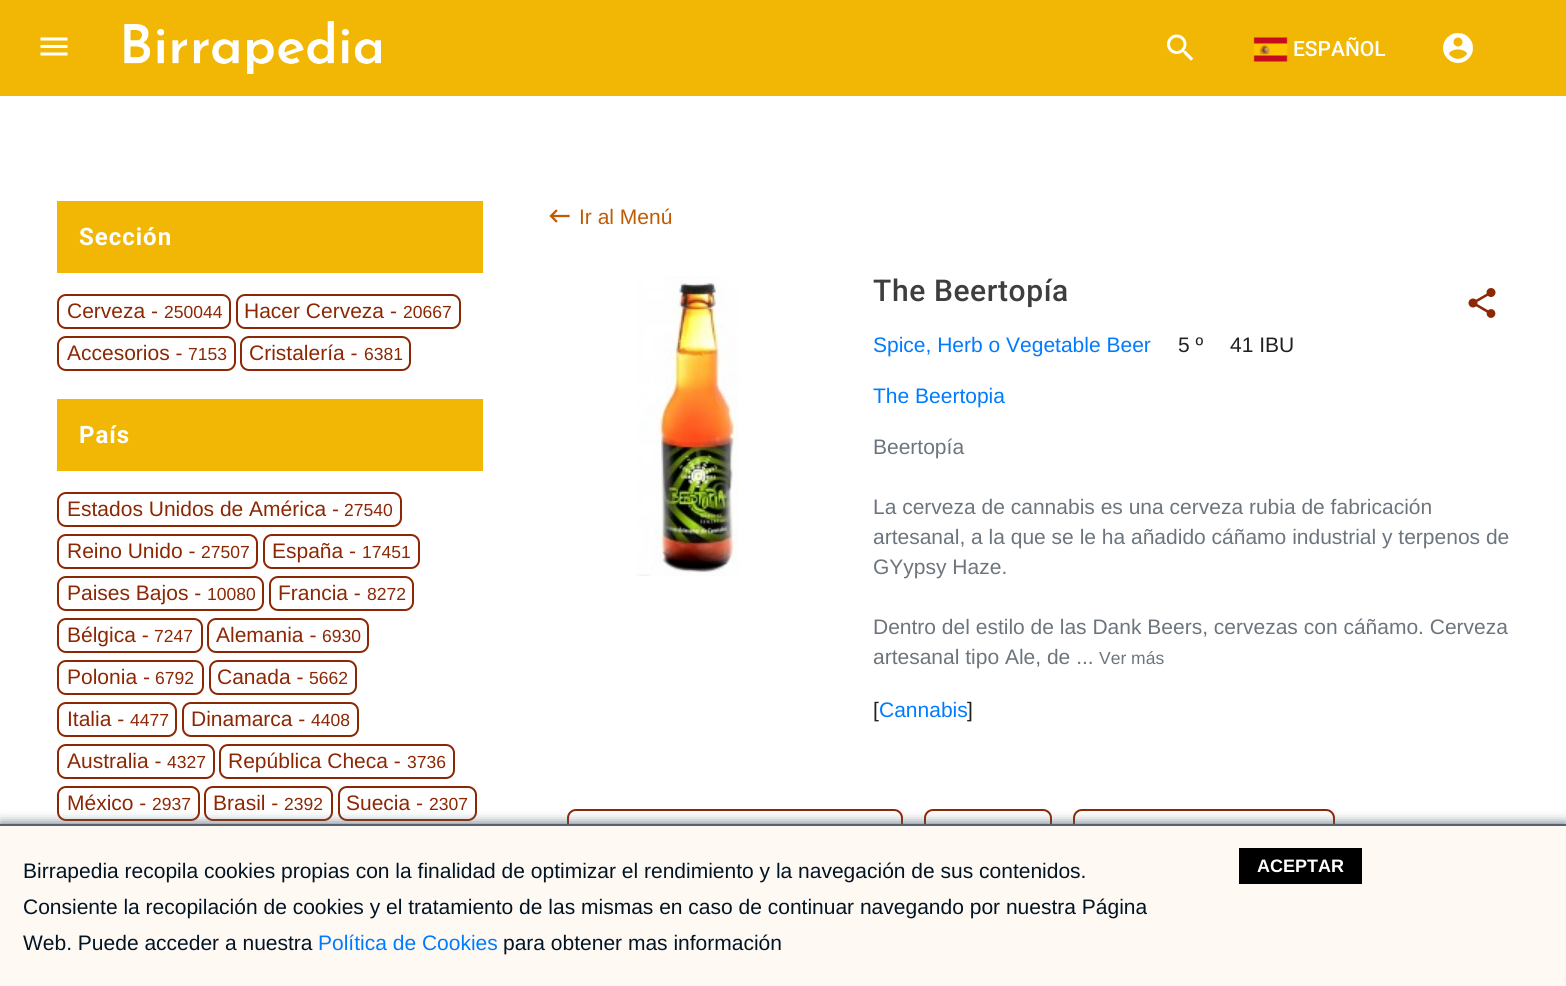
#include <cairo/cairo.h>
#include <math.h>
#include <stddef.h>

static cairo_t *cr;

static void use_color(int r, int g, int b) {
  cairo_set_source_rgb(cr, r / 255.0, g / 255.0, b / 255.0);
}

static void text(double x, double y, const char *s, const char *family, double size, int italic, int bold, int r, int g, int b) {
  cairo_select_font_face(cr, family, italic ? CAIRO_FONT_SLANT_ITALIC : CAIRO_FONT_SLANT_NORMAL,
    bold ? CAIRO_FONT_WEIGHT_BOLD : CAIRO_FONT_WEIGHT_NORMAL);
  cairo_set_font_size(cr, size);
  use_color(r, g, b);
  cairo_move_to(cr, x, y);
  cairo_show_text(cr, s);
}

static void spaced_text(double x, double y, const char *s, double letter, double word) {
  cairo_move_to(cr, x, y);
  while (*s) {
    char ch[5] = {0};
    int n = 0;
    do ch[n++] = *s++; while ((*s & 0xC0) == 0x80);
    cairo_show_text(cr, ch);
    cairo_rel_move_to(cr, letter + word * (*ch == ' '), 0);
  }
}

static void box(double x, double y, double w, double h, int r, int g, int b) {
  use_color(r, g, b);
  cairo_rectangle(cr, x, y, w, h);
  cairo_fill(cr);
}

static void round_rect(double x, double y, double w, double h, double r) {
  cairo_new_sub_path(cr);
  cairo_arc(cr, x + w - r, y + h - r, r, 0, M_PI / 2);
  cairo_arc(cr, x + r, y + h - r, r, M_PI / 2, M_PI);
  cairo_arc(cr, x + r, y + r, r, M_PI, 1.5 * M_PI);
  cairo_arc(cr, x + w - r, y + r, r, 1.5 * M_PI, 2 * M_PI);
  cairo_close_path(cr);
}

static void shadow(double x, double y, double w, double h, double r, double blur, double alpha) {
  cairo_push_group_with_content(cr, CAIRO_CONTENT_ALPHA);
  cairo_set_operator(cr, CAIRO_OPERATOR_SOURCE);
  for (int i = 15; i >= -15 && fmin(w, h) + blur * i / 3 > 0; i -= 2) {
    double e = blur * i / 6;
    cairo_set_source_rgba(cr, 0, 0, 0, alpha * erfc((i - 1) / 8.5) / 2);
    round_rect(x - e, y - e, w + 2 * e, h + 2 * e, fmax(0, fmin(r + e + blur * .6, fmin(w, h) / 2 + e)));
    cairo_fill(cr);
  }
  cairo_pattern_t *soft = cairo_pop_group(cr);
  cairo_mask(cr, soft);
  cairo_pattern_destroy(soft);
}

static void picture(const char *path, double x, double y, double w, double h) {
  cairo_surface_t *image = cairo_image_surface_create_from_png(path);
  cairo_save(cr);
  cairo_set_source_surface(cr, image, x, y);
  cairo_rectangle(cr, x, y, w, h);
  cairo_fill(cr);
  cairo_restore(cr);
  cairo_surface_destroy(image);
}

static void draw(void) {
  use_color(255, 255, 255);
  cairo_paint(cr);
  box(0, 0, 1566, 96, 242, 183, 5);
  picture("img_01.png", 40, 37, 28, 19);
  picture("img_02.png", 124, 21, 257, 53);
  picture("img_03.png", 1167, 34, 27, 27);
  picture("img_04.png", 1253, 37, 35, 25);
  picture("img_05.png", 1443, 33, 30, 30);
  box(57, 201, 426, 72, 242, 183, 5);
  round_rect(58, 295, 172, 33, 8);
  use_color(140, 39, 3);
  cairo_stroke(cr);
  round_rect(237, 295, 223, 33, 8);
  cairo_stroke(cr);
  round_rect(58, 337, 177, 33, 8);
  cairo_stroke(cr);
  round_rect(241, 337, 169, 33, 8);
  cairo_stroke(cr);
  box(57, 399, 426, 72, 242, 183, 5);
  round_rect(58, 493, 343, 33, 8);
  use_color(140, 39, 3);
  cairo_stroke(cr);
  round_rect(58, 535, 199, 33, 8);
  cairo_stroke(cr);
  round_rect(264, 535, 155, 33, 8);
  cairo_stroke(cr);
  round_rect(58, 577, 205, 33, 8);
  cairo_stroke(cr);
  round_rect(270, 577, 143, 33, 8);
  cairo_stroke(cr);
  round_rect(58, 619, 144, 33, 8);
  cairo_stroke(cr);
  round_rect(208, 619, 160, 33, 8);
  cairo_stroke(cr);
  round_rect(58, 661, 145, 33, 8);
  cairo_stroke(cr);
  round_rect(210, 661, 146, 33, 8);
  cairo_stroke(cr);
  round_rect(58, 703, 118, 33, 8);
  cairo_stroke(cr);
  round_rect(183, 703, 175, 33, 8);
  cairo_stroke(cr);
  round_rect(58, 745, 156, 33, 8);
  cairo_stroke(cr);
  round_rect(220, 745, 234, 33, 8);
  cairo_stroke(cr);
  round_rect(58, 787, 141, 33, 8);
  cairo_stroke(cr);
  round_rect(205, 787, 127, 33, 8);
  cairo_stroke(cr);
  round_rect(339, 787, 137, 33, 8);
  cairo_stroke(cr);
  picture("img_06.png", 549, 209, 21, 14);
  picture("img_07.png", 636, 276, 103, 300);
  picture("img_08.png", 1468, 288, 28, 30);
  round_rect(568, 810, 334, 55, 8);
  cairo_stroke(cr);
  round_rect(925, 810, 126, 55, 8);
  cairo_stroke(cr);
  round_rect(1074, 810, 260, 55, 8);
  cairo_stroke(cr);
  use_color(86, 99, 110);
  shadow(0, 824, 1566, 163, 0, 6, 1);
  box(0, 826, 1566, 160, 255, 249, 244);
  box(0, 824, 1566, 2, 86, 99, 110);
  box(1239, 848, 123, 36, 0, 0, 0);
  text(1293, 56, "ESPAÑOL", "Roboto Medium", 21, 0, 0, 255, 255, 255);
  cairo_select_font_face(cr, "Roboto", CAIRO_FONT_SLANT_NORMAL, CAIRO_FONT_WEIGHT_BOLD);
  cairo_set_font_size(cr, 24);
  spaced_text(79, 245, "Sección", 1, 0);
  text(67, 318, "Cerveza -", "Liberation Sans", 21, 0, 0, 140, 39, 3);
  text(164, 318, "250044", "Liberation Sans", 17.5, 0, 0, 140, 39, 3);
  text(244, 318, "Hacer Cerveza -", "Liberation Sans", 21, 0, 0, 140, 39, 3);
  text(403, 318, "20667", "Liberation Sans", 17.5, 0, 0, 140, 39, 3);
  text(67, 360, "Accesorios -", "Liberation Sans", 21, 0, 0, 140, 39, 3);
  text(188, 360, "7153", "Liberation Sans", 17.5, 0, 0, 140, 39, 3);
  text(249, 360, "Cristalería -", "Liberation Sans", 21, 0, 0, 140, 39, 3);
  text(364, 360, "6381", "Liberation Sans", 17.5, 0, 0, 140, 39, 3);
  cairo_select_font_face(cr, "Roboto", CAIRO_FONT_SLANT_NORMAL, CAIRO_FONT_WEIGHT_BOLD);
  cairo_set_font_size(cr, 24);
  use_color(255, 255, 255);
  spaced_text(79, 443, "País", 1, 0);
  text(67, 516, "Estados Unidos de América -", "Liberation Sans", 21, 0, 0, 140, 39, 3);
  text(344, 516, "27540", "Liberation Sans", 17.5, 0, 0, 140, 39, 3);
  text(67, 558, "Reino Unido -", "Liberation Sans", 21, 0, 0, 140, 39, 3);
  text(201, 558, "27507", "Liberation Sans", 17.5, 0, 0, 140, 39, 3);
  text(272, 558, "España -", "Liberation Sans", 21, 0, 0, 140, 39, 3);
  text(362, 558, "17451", "Liberation Sans", 17.5, 0, 0, 140, 39, 3);
  text(67, 600, "Paises Bajos -", "Liberation Sans", 21, 0, 0, 140, 39, 3);
  text(207, 600, "10080", "Liberation Sans", 17.5, 0, 0, 140, 39, 3);
  text(278, 600, "Francia -", "Liberation Sans", 21, 0, 0, 140, 39, 3);
  text(367, 600, "8272", "Liberation Sans", 17.5, 0, 0, 140, 39, 3);
  text(67, 642, "Bélgica -", "Liberation Sans", 21, 0, 0, 140, 39, 3);
  text(154, 642, "7247", "Liberation Sans", 17.5, 0, 0, 140, 39, 3);
  text(216, 642, "Alemania -", "Liberation Sans", 21, 0, 0, 140, 39, 3);
  text(322, 642, "6930", "Liberation Sans", 17.5, 0, 0, 140, 39, 3);
  text(67, 684, "Polonia -", "Liberation Sans", 21, 0, 0, 140, 39, 3);
  text(155, 684, "6792", "Liberation Sans", 17.5, 0, 0, 140, 39, 3);
  text(217, 684, "Canada -", "Liberation Sans", 21, 0, 0, 140, 39, 3);
  text(309, 684, "5662", "Liberation Sans", 17.5, 0, 0, 140, 39, 3);
  text(67, 726, "Italia -", "Liberation Sans", 21, 0, 0, 140, 39, 3);
  text(130, 726, "4477", "Liberation Sans", 17.5, 0, 0, 140, 39, 3);
  text(191, 726, "Dinamarca -", "Liberation Sans", 21, 0, 0, 140, 39, 3);
  text(311, 726, "4408", "Liberation Sans", 17.5, 0, 0, 140, 39, 3);
  text(67, 768, "Australia -", "Liberation Sans", 21, 0, 0, 140, 39, 3);
  text(167, 768, "4327", "Liberation Sans", 17.5, 0, 0, 140, 39, 3);
  text(228, 768, "República Checa -", "Liberation Sans", 21, 0, 0, 140, 39, 3);
  text(407, 768, "3736", "Liberation Sans", 17.5, 0, 0, 140, 39, 3);
  text(67, 810, "México -", "Liberation Sans", 21, 0, 0, 140, 39, 3);
  text(152, 810, "2937", "Liberation Sans", 17.5, 0, 0, 140, 39, 3);
  text(213, 810, "Brasil -", "Liberation Sans", 21, 0, 0, 140, 39, 3);
  text(284, 810, "2392", "Liberation Sans", 17.5, 0, 0, 140, 39, 3);
  text(346, 810, "Suecia -", "Liberation Sans", 21, 0, 0, 140, 39, 3);
  text(429, 810, "2307", "Liberation Sans", 17.5, 0, 0, 140, 39, 3);
  text(579, 224, "Ir al Menú", "Liberation Sans", 21, 0, 0, 191, 91, 4);
  cairo_select_font_face(cr, "Roboto Medium", CAIRO_FONT_SLANT_NORMAL, CAIRO_FONT_WEIGHT_NORMAL);
  cairo_set_font_size(cr, 30);
  use_color(62, 62, 62);
  spaced_text(873, 301, "The Beertopía", 0.6, 0);
  text(873, 352, "Spice, Herb o Vegetable Beer", "Liberation Sans", 21, 0, 0, 0, 123, 255);
  text(1178, 352, "5 º", "Liberation Sans", 21, 0, 0, 33, 33, 33);
  text(1230, 352, "41 IBU", "Liberation Sans", 21, 0, 0, 33, 33, 33);
  text(873, 403, "The Beertopia", "Liberation Sans", 21, 0, 0, 0, 123, 255);
  text(873, 454, "Beertopía", "Liberation Sans", 21, 0, 0, 108, 117, 125);
  text(873, 514, "La cerveza de cannabis es una cerveza rubia de fabricación", "Liberation Sans", 21, 0, 0, 108, 117, 125);
  text(873, 544, "artesanal, a la que se le ha añadido cáñamo industrial y terpenos de", "Liberation Sans", 21, 0, 0, 108, 117, 125);
  text(873, 574, "GYypsy Haze.", "Liberation Sans", 21, 0, 0, 108, 117, 125);
  text(873, 634, "Dentro del estilo de las Dank Beers, cervezas con cáñamo. Cerveza", "Liberation Sans", 21, 0, 0, 108, 117, 125);
  text(873, 664, "artesanal tipo Ale, de ...", "Liberation Sans", 21, 0, 0, 108, 117, 125);
  text(1099, 664, "Ver más", "Liberation Sans", 17.5, 0, 0, 108, 117, 125);
  text(873, 717, "[", "Liberation Sans", 21, 0, 0, 33, 33, 33);
  text(879, 717, "Cannabis", "Liberation Sans", 21, 0, 0, 0, 123, 255);
  text(967, 717, "]", "Liberation Sans", 21, 0, 0, 33, 33, 33);
  text(23, 878, "Birrapedia recopila cookies propias con la finalidad de optimizar el rendimiento y la navegación de sus contenidos.", "Liberation Sans", 21, 0, 0, 0, 20, 36);
  text(23, 914, "Consiente la recopilación de cookies y el tratamiento de las mismas en caso de continuar navegando por nuestra Página", "Liberation Sans", 21, 0, 0, 0, 20, 36);
  text(23, 950, "Web. Puede acceder a nuestra", "Liberation Sans", 21, 0, 0, 0, 20, 36);
  text(318, 950, "Política de Cookies", "Liberation Sans", 21, 0, 0, 0, 123, 255);
  text(503, 950, "para obtener mas información", "Liberation Sans", 21, 0, 0, 0, 20, 36);
  text(1257, 872, "ACEPTAR", "Liberation Sans", 18, 0, 1, 255, 255, 255);
}

int main(void) {
  cairo_surface_t *surface = cairo_image_surface_create(CAIRO_FORMAT_RGB24, 1566, 986);
  cr = cairo_create(surface);
  cairo_font_options_t *options = cairo_font_options_create();
  cairo_font_options_set_hint_metrics(options, CAIRO_HINT_METRICS_OFF);
  cairo_font_options_set_hint_style(options, CAIRO_HINT_STYLE_NONE);
  cairo_set_font_options(cr, options);
  cairo_set_miter_limit(cr, 4);
  draw();
  cairo_surface_write_to_png(surface, "out.png");
  cairo_font_options_destroy(options);
  cairo_destroy(cr);
  cairo_surface_destroy(surface);
  return 0;
}
